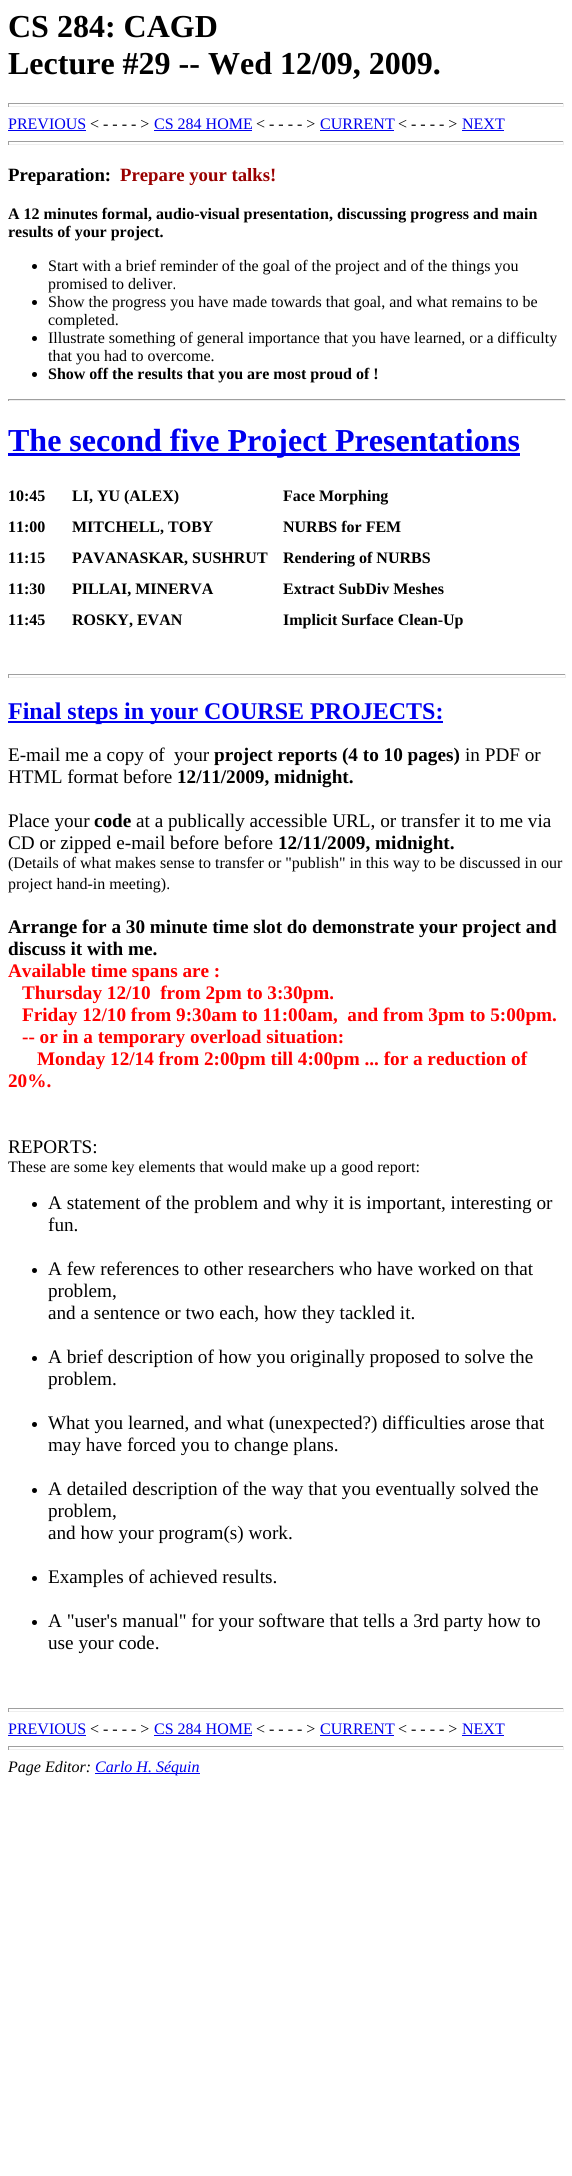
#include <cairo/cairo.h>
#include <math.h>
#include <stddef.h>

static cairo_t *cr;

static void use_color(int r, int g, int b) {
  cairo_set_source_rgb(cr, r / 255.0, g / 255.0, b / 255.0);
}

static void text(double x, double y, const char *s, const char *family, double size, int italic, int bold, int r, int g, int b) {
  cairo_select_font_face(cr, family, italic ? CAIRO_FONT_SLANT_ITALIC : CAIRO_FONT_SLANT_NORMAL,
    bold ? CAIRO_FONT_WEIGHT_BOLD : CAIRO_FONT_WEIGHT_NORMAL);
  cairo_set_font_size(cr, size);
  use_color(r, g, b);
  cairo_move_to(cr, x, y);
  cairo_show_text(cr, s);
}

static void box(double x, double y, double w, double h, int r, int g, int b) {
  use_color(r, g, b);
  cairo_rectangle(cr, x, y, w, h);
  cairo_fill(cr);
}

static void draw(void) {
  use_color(255, 255, 255);
  cairo_paint(cr);
  box(8, 103, 556, 1, 159, 159, 159);
  box(563, 103, 1, 4, 238, 238, 238);
  box(8, 106, 556, 1, 238, 238, 238);
  box(8, 103, 1, 4, 159, 159, 159);
  box(8, 130, 78, 1, 0, 0, 238);
  box(154, 130, 98, 1, 0, 0, 238);
  box(320, 130, 74, 1, 0, 0, 238);
  box(462, 130, 42, 1, 0, 0, 238);
  box(8, 141, 556, 1, 159, 159, 159);
  box(563, 141, 1, 4, 238, 238, 238);
  box(8, 144, 556, 1, 238, 238, 238);
  box(8, 141, 1, 4, 159, 159, 159);
  use_color(0, 0, 0);
  cairo_arc(cr, 34.5, 266.5, 2.5, 0, 2 * M_PI);
  cairo_fill(cr);
  cairo_arc(cr, 34.5, 302.5, 2.5, 0, 2 * M_PI);
  cairo_fill(cr);
  cairo_arc(cr, 34.5, 338.5, 2.5, 0, 2 * M_PI);
  cairo_fill(cr);
  cairo_arc(cr, 34.5, 374.5, 2.5, 0, 2 * M_PI);
  cairo_fill(cr);
  box(8, 399, 558, 1, 159, 159, 159);
  box(565, 399, 1, 2, 238, 238, 238);
  box(8, 400, 558, 1, 238, 238, 238);
  box(8, 399, 1, 2, 159, 159, 159);
  box(8, 453, 512, 3, 0, 0, 238);
  box(8, 674, 558, 1, 159, 159, 159);
  box(565, 674, 1, 4, 238, 238, 238);
  box(8, 677, 558, 1, 238, 238, 238);
  box(8, 674, 1, 4, 159, 159, 159);
  box(8, 721, 435, 2, 0, 0, 238);
  use_color(0, 0, 0);
  cairo_arc(cr, 34.5, 1204.5, 2.5, 0, 2 * M_PI);
  cairo_fill(cr);
  cairo_arc(cr, 34.5, 1270.5, 2.5, 0, 2 * M_PI);
  cairo_fill(cr);
  cairo_arc(cr, 34.5, 1358.5, 2.5, 0, 2 * M_PI);
  cairo_fill(cr);
  cairo_arc(cr, 34.5, 1424.5, 2.5, 0, 2 * M_PI);
  cairo_fill(cr);
  cairo_arc(cr, 34.5, 1490.5, 2.5, 0, 2 * M_PI);
  cairo_fill(cr);
  cairo_arc(cr, 34.5, 1578.5, 2.5, 0, 2 * M_PI);
  cairo_fill(cr);
  cairo_arc(cr, 34.5, 1622.5, 2.5, 0, 2 * M_PI);
  cairo_fill(cr);
  box(8, 1708, 556, 1, 159, 159, 159);
  box(563, 1708, 1, 4, 238, 238, 238);
  box(8, 1711, 556, 1, 238, 238, 238);
  box(8, 1708, 1, 4, 159, 159, 159);
  box(8, 1735, 78, 1, 0, 0, 238);
  box(154, 1735, 98, 1, 0, 0, 238);
  box(320, 1735, 74, 1, 0, 0, 238);
  box(462, 1735, 42, 1, 0, 0, 238);
  box(8, 1746, 556, 1, 159, 159, 159);
  box(563, 1746, 1, 4, 238, 238, 238);
  box(8, 1749, 556, 1, 238, 238, 238);
  box(8, 1746, 1, 4, 159, 159, 159);
  box(95, 1773, 105, 1, 0, 0, 238);
  text(8, 37, "CS 284: CAGD", "Liberation Serif", 32, 0, 1, 0, 0, 0);
  text(8, 74, "Lecture #29 -- Wed 12/09, 2009.", "Liberation Serif", 32, 0, 1, 0, 0, 0);
  text(8, 129, "PREVIOUS", "Liberation Serif", 16, 0, 0, 0, 0, 238);
  text(90, 129, "< - - - - >", "Liberation Serif", 16, 0, 0, 0, 0, 0);
  text(154, 129, "CS 284 HOME", "Liberation Serif", 16, 0, 0, 0, 0, 238);
  text(256, 129, "< - - - - >", "Liberation Serif", 16, 0, 0, 0, 0, 0);
  text(320, 129, "CURRENT", "Liberation Serif", 16, 0, 0, 0, 0, 238);
  text(398, 129, "< - - - - >", "Liberation Serif", 16, 0, 0, 0, 0, 0);
  text(462, 129, "NEXT", "Liberation Serif", 16, 0, 0, 0, 0, 238);
  text(8, 181, "Preparation:", "Liberation Serif", 18.75, 0, 1, 0, 0, 0);
  text(120, 181, "Prepare your talks!", "Liberation Serif", 18.75, 0, 1, 153, 0, 0);
  text(8, 219, "A 12 minutes formal, audio-visual presentation, discussing progress and main", "Liberation Serif", 16, 0, 1, 0, 0, 0);
  text(8, 237, "results of your project.", "Liberation Serif", 16, 0, 1, 0, 0, 0);
  text(48, 271, "Start with a brief reminder of the goal of the project and of the things you", "Liberation Serif", 16, 0, 0, 0, 0, 0);
  text(48, 289, "promised to deliver.", "Liberation Serif", 16, 0, 0, 0, 0, 0);
  text(48, 307, "Show the progress you have made towards that goal, and what remains to be", "Liberation Serif", 16, 0, 0, 0, 0, 0);
  text(48, 325, "completed.", "Liberation Serif", 16, 0, 0, 0, 0, 0);
  text(48, 343, "Illustrate something of general importance that you have learned, or a difficulty", "Liberation Serif", 16, 0, 0, 0, 0, 0);
  text(48, 361, "that you had to overcome.", "Liberation Serif", 16, 0, 0, 0, 0, 0);
  text(48, 379, "Show off the results that you are most proud of !", "Liberation Serif", 16, 0, 1, 0, 0, 0);
  text(8, 451, "The second five Project Presentations", "Liberation Serif", 32, 0, 1, 0, 0, 238);
  text(8, 501, "10:45", "Liberation Serif", 16, 0, 1, 0, 0, 0);
  text(72, 501, "LI, YU (ALEX)", "Liberation Serif", 16, 0, 1, 0, 0, 0);
  text(283, 501, "Face Morphing", "Liberation Serif", 16, 0, 1, 0, 0, 0);
  text(8, 532, "11:00", "Liberation Serif", 16, 0, 1, 0, 0, 0);
  text(72, 532, "MITCHELL, TOBY", "Liberation Serif", 16, 0, 1, 0, 0, 0);
  text(283, 532, "NURBS for FEM", "Liberation Serif", 16, 0, 1, 0, 0, 0);
  text(8, 563, "11:15", "Liberation Serif", 16, 0, 1, 0, 0, 0);
  text(72, 563, "PAVANASKAR, SUSHRUT", "Liberation Serif", 16, 0, 1, 0, 0, 0);
  text(283, 563, "Rendering of NURBS", "Liberation Serif", 16, 0, 1, 0, 0, 0);
  text(8, 594, "11:30", "Liberation Serif", 16, 0, 1, 0, 0, 0);
  text(72, 594, "PILLAI, MINERVA", "Liberation Serif", 16, 0, 1, 0, 0, 0);
  text(283, 594, "Extract SubDiv Meshes", "Liberation Serif", 16, 0, 1, 0, 0, 0);
  text(8, 625, "11:45", "Liberation Serif", 16, 0, 1, 0, 0, 0);
  text(72, 625, "ROSKY, EVAN", "Liberation Serif", 16, 0, 1, 0, 0, 0);
  text(283, 625, "Implicit Surface Clean-Up", "Liberation Serif", 16, 0, 1, 0, 0, 0);
  text(8, 719, "Final steps in your COURSE PROJECTS:", "Liberation Serif", 24, 0, 1, 0, 0, 238);
  text(8, 761, "E-mail me a copy of", "Liberation Serif", 19.2, 0, 0, 0, 0, 0);
  text(174, 761, "your", "Liberation Serif", 19.2, 0, 0, 0, 0, 0);
  text(214, 761, "project reports (4 to 10 pages)", "Liberation Serif", 19.2, 0, 1, 0, 0, 0);
  text(465, 761, "in PDF or", "Liberation Serif", 19.2, 0, 0, 0, 0, 0);
  text(8, 783, "HTML format before", "Liberation Serif", 19.2, 0, 0, 0, 0, 0);
  text(177, 783, "12/11/2009, midnight.", "Liberation Serif", 19.2, 0, 1, 0, 0, 0);
  text(8, 827, "Place your", "Liberation Serif", 19.2, 0, 0, 0, 0, 0);
  text(94, 827, "code", "Liberation Serif", 19.2, 0, 1, 0, 0, 0);
  text(136, 827, "at a publically accessible URL, or transfer it to me via", "Liberation Serif", 19.2, 0, 0, 0, 0, 0);
  text(8, 849, "CD or zipped e-mail before before", "Liberation Serif", 19.2, 0, 0, 0, 0, 0);
  text(278, 849, "12/11/2009, midnight.", "Liberation Serif", 19.2, 0, 1, 0, 0, 0);
  text(8, 868, "(Details of what makes sense to transfer or \"publish\" in this way to be discussed in our", "Liberation Serif", 16, 0, 0, 0, 0, 0);
  text(8, 889, "project hand-in meeting).", "Liberation Serif", 16, 0, 0, 0, 0, 0);
  text(8, 933, "Arrange for a 30 minute time slot do demonstrate your project and", "Liberation Serif", 19.2, 0, 1, 0, 0, 0);
  text(8, 955, "discuss it with me.", "Liberation Serif", 19.2, 0, 1, 0, 0, 0);
  text(8, 977, "Available time spans are :", "Liberation Serif", 19.2, 0, 1, 255, 0, 0);
  text(22, 999, "Thursday 12/10  from 2pm to 3:30pm.", "Liberation Serif", 19.2, 0, 1, 255, 0, 0);
  text(22, 1021, "Friday 12/10 from 9:30am to 11:00am,  and from 3pm to 5:00pm.", "Liberation Serif", 19.2, 0, 1, 255, 0, 0);
  text(22, 1043, "-- or in a temporary overload situation:", "Liberation Serif", 19.2, 0, 1, 255, 0, 0);
  text(37, 1065, "Monday 12/14 from 2:00pm till 4:00pm ... for a reduction of", "Liberation Serif", 19.2, 0, 1, 255, 0, 0);
  text(8, 1087, "20%.", "Liberation Serif", 19.2, 0, 1, 255, 0, 0);
  text(8, 1153, "REPORTS:", "Liberation Serif", 19.2, 0, 0, 0, 0, 0);
  text(8, 1172, "These are some key elements that would make up a good report:", "Liberation Serif", 16, 0, 0, 0, 0, 0);
  text(48, 1209, "A statement of the problem and why it is important, interesting or", "Liberation Serif", 19.2, 0, 0, 0, 0, 0);
  text(48, 1231, "fun.", "Liberation Serif", 19.2, 0, 0, 0, 0, 0);
  text(48, 1275, "A few references to other researchers who have worked on that", "Liberation Serif", 19.2, 0, 0, 0, 0, 0);
  text(48, 1297, "problem,", "Liberation Serif", 19.2, 0, 0, 0, 0, 0);
  text(48, 1319, "and a sentence or two each, how they tackled it.", "Liberation Serif", 19.2, 0, 0, 0, 0, 0);
  text(48, 1363, "A brief description of how you originally proposed to solve the", "Liberation Serif", 19.2, 0, 0, 0, 0, 0);
  text(48, 1385, "problem.", "Liberation Serif", 19.2, 0, 0, 0, 0, 0);
  text(48, 1429, "What you learned, and what (unexpected?) difficulties arose that", "Liberation Serif", 19.2, 0, 0, 0, 0, 0);
  text(48, 1451, "may have forced you to change plans.", "Liberation Serif", 19.2, 0, 0, 0, 0, 0);
  text(48, 1495, "A detailed description of the way that you eventually solved the", "Liberation Serif", 19.2, 0, 0, 0, 0, 0);
  text(48, 1517, "problem,", "Liberation Serif", 19.2, 0, 0, 0, 0, 0);
  text(48, 1539, "and how your program(s) work.", "Liberation Serif", 19.2, 0, 0, 0, 0, 0);
  text(48, 1583, "Examples of achieved results.", "Liberation Serif", 19.2, 0, 0, 0, 0, 0);
  text(48, 1627, "A \"user's manual\" for your software that tells a 3rd party how to", "Liberation Serif", 19.2, 0, 0, 0, 0, 0);
  text(48, 1649, "use your code.", "Liberation Serif", 19.2, 0, 0, 0, 0, 0);
  text(8, 1734, "PREVIOUS", "Liberation Serif", 16, 0, 0, 0, 0, 238);
  text(90, 1734, "< - - - - >", "Liberation Serif", 16, 0, 0, 0, 0, 0);
  text(154, 1734, "CS 284 HOME", "Liberation Serif", 16, 0, 0, 0, 0, 238);
  text(256, 1734, "< - - - - >", "Liberation Serif", 16, 0, 0, 0, 0, 0);
  text(320, 1734, "CURRENT", "Liberation Serif", 16, 0, 0, 0, 0, 238);
  text(398, 1734, "< - - - - >", "Liberation Serif", 16, 0, 0, 0, 0, 0);
  text(462, 1734, "NEXT", "Liberation Serif", 16, 0, 0, 0, 0, 238);
  text(8, 1772, "Page Editor:", "Liberation Serif", 16, 1, 0, 0, 0, 0);
  text(95, 1772, "Carlo H. Séquin", "Liberation Serif", 16, 1, 0, 0, 0, 238);
}

int main(void) {
  cairo_surface_t *surface = cairo_image_surface_create(CAIRO_FORMAT_RGB24, 572, 2176);
  cr = cairo_create(surface);
  cairo_font_options_t *options = cairo_font_options_create();
  cairo_font_options_set_hint_metrics(options, CAIRO_HINT_METRICS_OFF);
  cairo_font_options_set_hint_style(options, CAIRO_HINT_STYLE_NONE);
  cairo_set_font_options(cr, options);
  cairo_set_miter_limit(cr, 4);
  draw();
  cairo_surface_write_to_png(surface, "out.png");
  cairo_font_options_destroy(options);
  cairo_destroy(cr);
  cairo_surface_destroy(surface);
  return 0;
}
